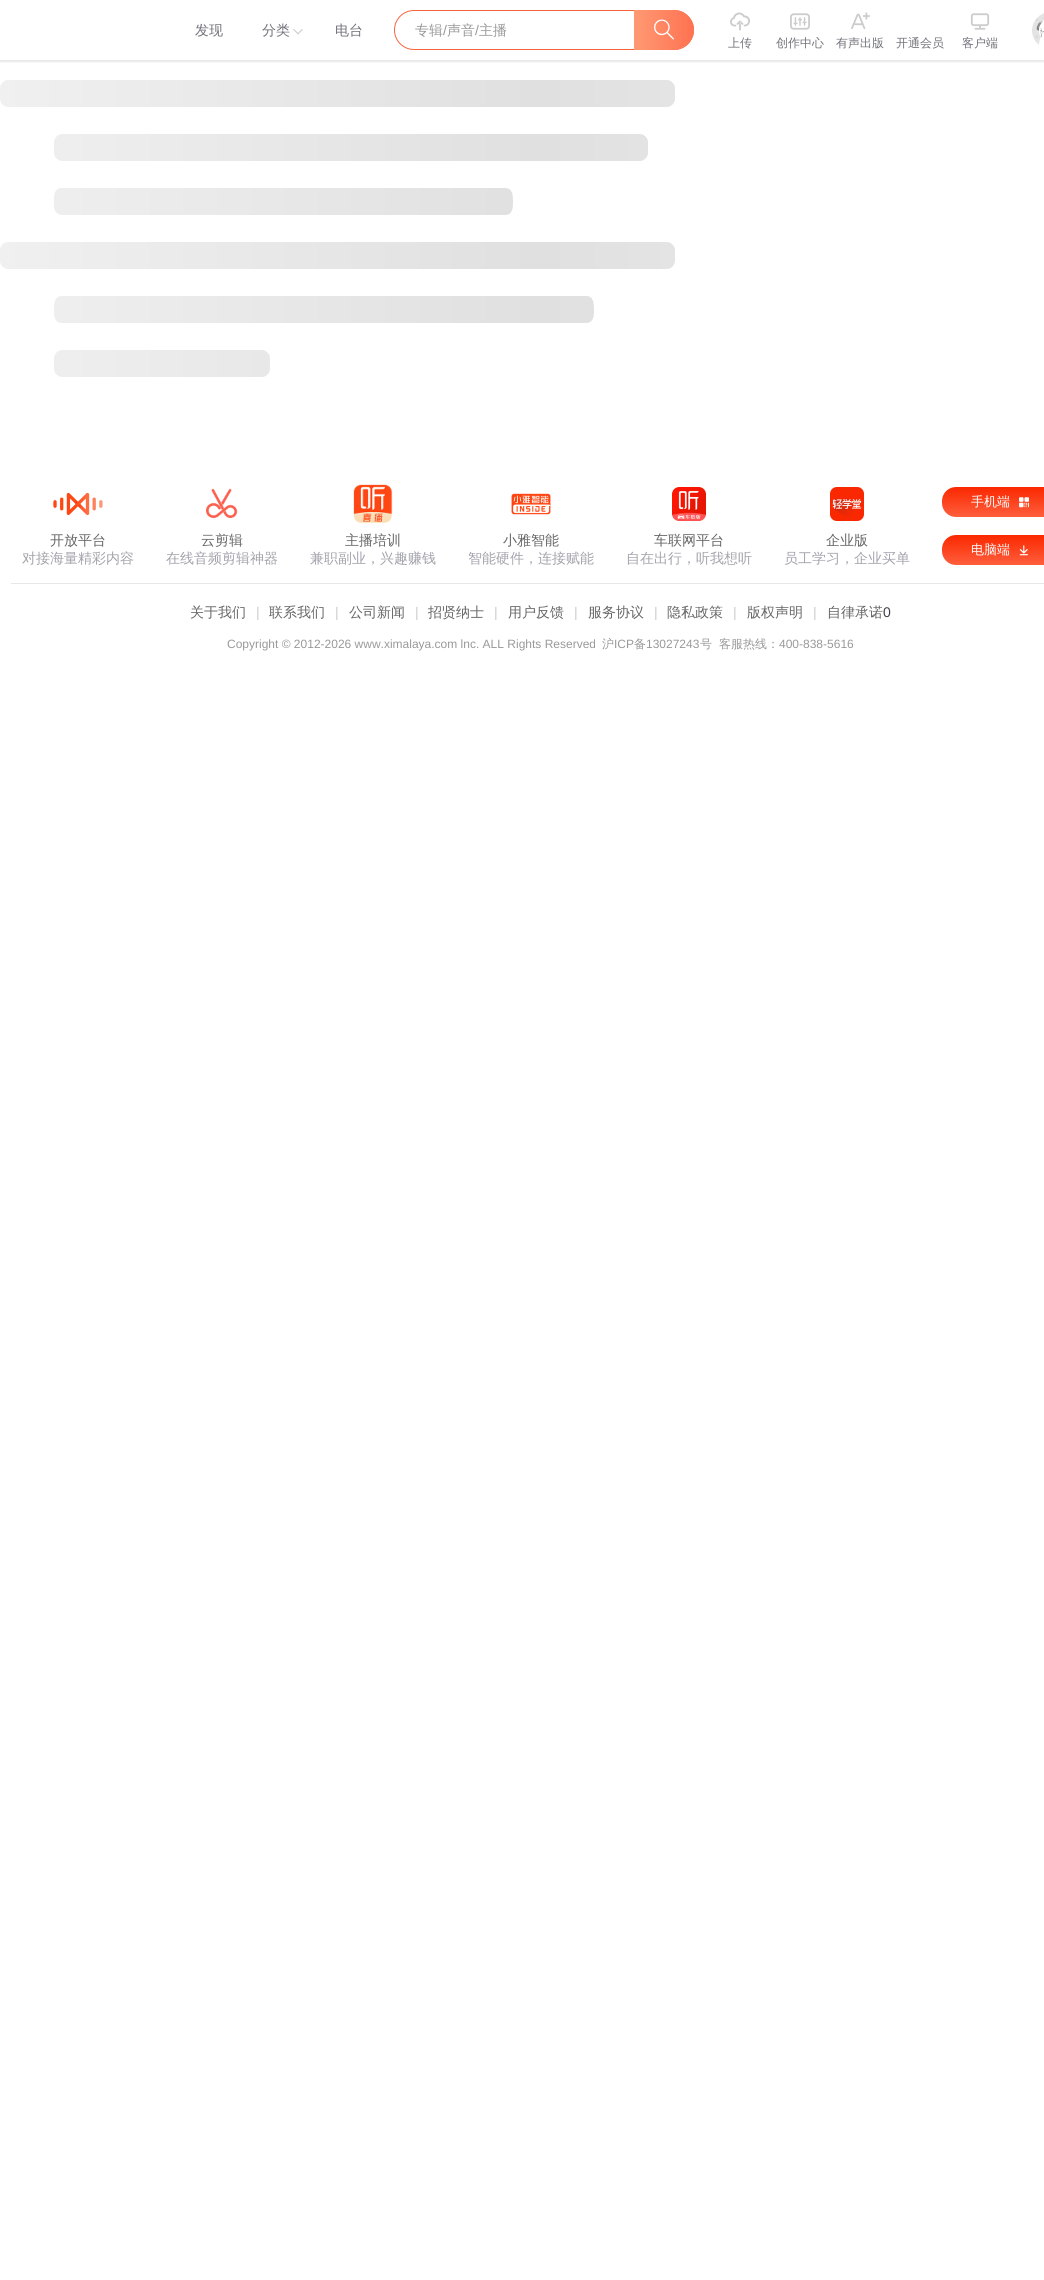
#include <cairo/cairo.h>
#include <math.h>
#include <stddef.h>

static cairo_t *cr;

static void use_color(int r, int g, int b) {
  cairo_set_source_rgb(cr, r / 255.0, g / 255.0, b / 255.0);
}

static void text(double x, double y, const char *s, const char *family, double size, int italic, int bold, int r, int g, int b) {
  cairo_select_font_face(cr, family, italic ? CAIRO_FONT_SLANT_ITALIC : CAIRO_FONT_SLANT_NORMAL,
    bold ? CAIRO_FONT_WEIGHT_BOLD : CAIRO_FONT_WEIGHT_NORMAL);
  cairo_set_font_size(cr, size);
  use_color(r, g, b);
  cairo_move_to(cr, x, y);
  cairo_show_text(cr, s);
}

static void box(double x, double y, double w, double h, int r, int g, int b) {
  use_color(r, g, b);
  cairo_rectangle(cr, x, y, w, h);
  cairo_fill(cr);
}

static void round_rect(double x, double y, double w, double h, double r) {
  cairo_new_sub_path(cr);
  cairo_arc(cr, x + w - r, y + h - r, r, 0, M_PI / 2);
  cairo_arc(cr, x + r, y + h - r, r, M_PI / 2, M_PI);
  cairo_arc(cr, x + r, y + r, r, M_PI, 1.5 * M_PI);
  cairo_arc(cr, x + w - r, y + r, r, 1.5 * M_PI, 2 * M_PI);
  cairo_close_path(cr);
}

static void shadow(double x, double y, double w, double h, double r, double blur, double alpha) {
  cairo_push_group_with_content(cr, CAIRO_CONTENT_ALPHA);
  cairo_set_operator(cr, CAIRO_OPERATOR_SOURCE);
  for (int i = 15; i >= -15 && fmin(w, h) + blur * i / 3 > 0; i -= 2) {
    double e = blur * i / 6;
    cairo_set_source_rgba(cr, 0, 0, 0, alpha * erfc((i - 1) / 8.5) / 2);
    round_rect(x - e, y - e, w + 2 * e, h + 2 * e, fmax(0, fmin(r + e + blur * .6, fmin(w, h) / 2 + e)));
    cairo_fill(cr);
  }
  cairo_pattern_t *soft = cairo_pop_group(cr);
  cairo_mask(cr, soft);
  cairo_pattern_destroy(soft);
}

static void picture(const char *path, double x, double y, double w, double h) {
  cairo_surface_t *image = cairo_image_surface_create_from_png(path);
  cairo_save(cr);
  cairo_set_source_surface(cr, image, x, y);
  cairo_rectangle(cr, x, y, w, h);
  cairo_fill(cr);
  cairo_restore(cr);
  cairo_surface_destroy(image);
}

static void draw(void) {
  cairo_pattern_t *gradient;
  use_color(255, 255, 255);
  cairo_paint(cr);
  cairo_save(cr);
  cairo_rectangle(cr, 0, 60, 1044, 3);
  cairo_clip(cr);
  use_color(0, 0, 0);
  shadow(0, 2, 1044, 60, 0, 1, 0.1);
  cairo_restore(cr);
  use_color(204, 204, 204);
  cairo_new_path(cr);
  cairo_move_to(cr, 303, 29.5);
  cairo_line_to(cr, 298, 34.5);
  cairo_line_to(cr, 297.5, 33.5);
  cairo_line_to(cr, 302, 29);
  cairo_close_path(cr);
  cairo_fill(cr);
  cairo_new_path(cr);
  cairo_move_to(cr, 298.5, 33.5);
  cairo_line_to(cr, 298, 34.5);
  cairo_line_to(cr, 293, 29.5);
  cairo_line_to(cr, 294, 29);
  cairo_close_path(cr);
  cairo_fill(cr);
  round_rect(394.5, 10.5, 299, 39, 19.5);
  use_color(248, 100, 66);
  cairo_set_line_width(cr, 1);
  cairo_stroke(cr);
  gradient = cairo_pattern_create_linear(634, 30, 694, 30);
  cairo_pattern_add_color_stop_rgba(gradient, 0.01, 1, 0.6, 0.451, 1);
  cairo_pattern_add_color_stop_rgba(gradient, 0.99, 1, 0.447, 0.318, 1);
  cairo_set_source(cr, gradient);
  cairo_pattern_destroy(gradient);
  cairo_new_path(cr);
  cairo_move_to(cr, 634, 10);
  cairo_line_to(cr, 674, 10);
  cairo_curve_to(cr, 685, 10, 694, 19, 694, 30);
  cairo_curve_to(cr, 694, 41, 685, 50, 674, 50);
  cairo_line_to(cr, 634, 50);
  cairo_close_path(cr);
  cairo_fill(cr);
  picture("img_01.png", 654, 19, 20, 21);
  picture("img_02.png", 730, 12, 20, 19);
  picture("img_03.png", 790, 13, 20, 17);
  picture("img_04.png", 851, 12, 19, 18);
  picture("img_05.png", 970, 13, 20, 17);
  picture("img_06.png", 1032, 13, 12, 32);
  gradient = cairo_pattern_create_linear(0, 80, 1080, 80);
  cairo_pattern_add_color_stop_rgba(gradient, 0, 0.941, 0.941, 0.941, 1);
  cairo_pattern_add_color_stop_rgba(gradient, 0.5, 0.878, 0.878, 0.878, 1);
  cairo_pattern_add_color_stop_rgba(gradient, 1, 0.941, 0.941, 0.941, 1);
  cairo_set_source(cr, gradient);
  cairo_pattern_destroy(gradient);
  cairo_set_fill_rule(cr, CAIRO_FILL_RULE_EVEN_ODD);
  cairo_new_path(cr);
  cairo_move_to(cr, 8, 80);
  cairo_curve_to(cr, 4, 80, 0, 84, 0, 88);
  cairo_line_to(cr, 0, 99);
  cairo_curve_to(cr, 0, 103, 4, 107, 8, 107);
  cairo_line_to(cr, 667, 107);
  cairo_curve_to(cr, 671, 107, 675, 103, 675, 99);
  cairo_line_to(cr, 675, 88);
  cairo_curve_to(cr, 675, 84, 671, 80, 667, 80);
  cairo_close_path(cr);
  cairo_move_to(cr, 8, 242);
  cairo_curve_to(cr, 4, 242, 0, 246, 0, 250);
  cairo_line_to(cr, 0, 261);
  cairo_curve_to(cr, 0, 265, 4, 269, 8, 269);
  cairo_line_to(cr, 667, 269);
  cairo_curve_to(cr, 671, 269, 675, 265, 675, 261);
  cairo_line_to(cr, 675, 250);
  cairo_curve_to(cr, 675, 246, 671, 242, 667, 242);
  cairo_close_path(cr);
  cairo_move_to(cr, 62, 134);
  cairo_curve_to(cr, 58, 134, 54, 138, 54, 142);
  cairo_line_to(cr, 54, 153);
  cairo_curve_to(cr, 54, 157, 58, 161, 62, 161);
  cairo_line_to(cr, 640, 161);
  cairo_curve_to(cr, 644, 161, 648, 157, 648, 153);
  cairo_line_to(cr, 648, 142);
  cairo_curve_to(cr, 648, 138, 644, 134, 640, 134);
  cairo_close_path(cr);
  cairo_move_to(cr, 62, 188);
  cairo_curve_to(cr, 52, 188, 54, 200, 54, 207);
  cairo_curve_to(cr, 54, 211, 58, 215, 62, 215);
  cairo_line_to(cr, 505, 215);
  cairo_curve_to(cr, 513, 215, 513, 207, 513, 202);
  cairo_curve_to(cr, 513, 196, 513, 188, 505, 188);
  cairo_close_path(cr);
  cairo_move_to(cr, 62, 296);
  cairo_curve_to(cr, 54, 296, 54, 304, 54, 310);
  cairo_curve_to(cr, 54, 315, 54, 323, 62, 323);
  cairo_line_to(cr, 586, 323);
  cairo_curve_to(cr, 594, 323, 594, 315, 594, 310);
  cairo_curve_to(cr, 594, 304, 594, 296, 586, 296);
  cairo_close_path(cr);
  cairo_move_to(cr, 62, 350);
  cairo_curve_to(cr, 58, 350, 54, 354, 54, 358);
  cairo_line_to(cr, 54, 369);
  cairo_curve_to(cr, 54, 373, 58, 377, 62, 377);
  cairo_line_to(cr, 262, 377);
  cairo_curve_to(cr, 266, 377, 270, 373, 270, 369);
  cairo_line_to(cr, 270, 358);
  cairo_curve_to(cr, 270, 354, 266, 350, 262, 350);
  cairo_close_path(cr);
  cairo_fill(cr);
  box(11, 583, 1033, 1, 232, 232, 232);
  picture("img_07.png", 53, 492, 50, 24);
  picture("img_08.png", 206, 488, 32, 30);
  picture("img_09.png", 353, 484, 40, 40);
  picture("img_10.png", 511, 493, 40, 22);
  picture("img_11.png", 672, 487, 34, 34);
  picture("img_12.png", 830, 487, 34, 34);
  gradient = cairo_pattern_create_linear(1000, 487, 1000, 517);
  cairo_pattern_add_color_stop_rgba(gradient, 0, 0.98, 0.157, 0, 1);
  cairo_pattern_add_color_stop_rgba(gradient, 1, 1, 0.369, 0.239, 1);
  cairo_set_source(cr, gradient);
  cairo_pattern_destroy(gradient);
  round_rect(942, 487, 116, 30, 14);
  cairo_fill(cr);
  picture("img_13.png", 1019, 497, 10, 11);
  gradient = cairo_pattern_create_linear(1000, 535, 1000, 565);
  cairo_pattern_add_color_stop_rgba(gradient, 0, 0.98, 0.157, 0, 1);
  cairo_pattern_add_color_stop_rgba(gradient, 1, 1, 0.369, 0.239, 1);
  cairo_set_source(cr, gradient);
  cairo_pattern_destroy(gradient);
  round_rect(942, 535, 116, 30, 14);
  cairo_fill(cr);
  picture("img_14.png", 1019, 545, 9, 11);
  text(195, 35, "发现", "WenQuanYi Zen Hei Medium", 14, 0, 0, 114, 114, 123);
  text(262, 35, "分类", "WenQuanYi Zen Hei Medium", 14, 0, 0, 114, 114, 123);
  text(335, 35, "电台", "WenQuanYi Zen Hei Medium", 14, 0, 0, 114, 114, 123);
  text(415, 35, "专辑", "WenQuanYi Zen Hei Medium", 14, 0, 0, 153, 153, 153);
  text(443, 35, "/", "Liberation Sans", 14, 0, 0, 153, 153, 153);
  text(447, 35, "声音", "WenQuanYi Zen Hei Medium", 14, 0, 0, 153, 153, 153);
  text(475, 35, "/", "Liberation Sans", 14, 0, 0, 153, 153, 153);
  text(479, 35, "主播", "WenQuanYi Zen Hei Medium", 14, 0, 0, 153, 153, 153);
  text(728, 47, "上传", "WenQuanYi Zen Hei Medium", 12, 0, 0, 114, 114, 123);
  text(776, 47, "创作中心", "WenQuanYi Zen Hei Medium", 12, 0, 0, 114, 114, 123);
  text(836, 47, "有声出版", "WenQuanYi Zen Hei Medium", 12, 0, 0, 114, 114, 123);
  text(896, 47, "开通会员", "WenQuanYi Zen Hei Medium", 12, 0, 0, 114, 114, 123);
  text(962, 47, "客户端", "WenQuanYi Zen Hei Medium", 12, 0, 0, 114, 114, 123);
  text(50, 545, "开放平台", "WenQuanYi Zen Hei Medium", 14, 0, 0, 102, 102, 102);
  text(22, 563, "对接海量精彩内容", "WenQuanYi Zen Hei Medium", 14, 0, 0, 163, 163, 172);
  text(201, 545, "云剪辑", "WenQuanYi Zen Hei Medium", 14, 0, 0, 102, 102, 102);
  text(166, 563, "在线音频剪辑神器", "WenQuanYi Zen Hei Medium", 14, 0, 0, 163, 163, 172);
  text(345, 545, "主播培训", "WenQuanYi Zen Hei Medium", 14, 0, 0, 102, 102, 102);
  text(310, 563, "兼职副业，兴趣赚钱", "WenQuanYi Zen Hei Medium", 14, 0, 0, 163, 163, 172);
  text(503, 545, "小雅智能", "WenQuanYi Zen Hei Medium", 14, 0, 0, 102, 102, 102);
  text(468, 563, "智能硬件，连接赋能", "WenQuanYi Zen Hei Medium", 14, 0, 0, 163, 163, 172);
  text(654, 545, "车联网平台", "WenQuanYi Zen Hei Medium", 14, 0, 0, 102, 102, 102);
  text(626, 563, "自在出行，听我想听", "WenQuanYi Zen Hei Medium", 14, 0, 0, 163, 163, 172);
  text(826, 545, "企业版", "WenQuanYi Zen Hei Medium", 14, 0, 0, 102, 102, 102);
  text(784, 563, "员工学习，企业买单", "WenQuanYi Zen Hei Medium", 14, 0, 0, 163, 163, 172);
  text(971, 506, "手机端", "WenQuanYi Zen Hei Medium", 13, 0, 0, 255, 255, 255);
  text(971, 554, "电脑端", "WenQuanYi Zen Hei Medium", 13, 0, 0, 255, 255, 255);
  text(190, 617, "关于我们", "WenQuanYi Zen Hei Medium", 14, 0, 0, 102, 102, 102);
  text(256, 617, "|", "Liberation Sans", 14, 0, 0, 204, 204, 204);
  text(269, 617, "联系我们", "WenQuanYi Zen Hei Medium", 14, 0, 0, 102, 102, 102);
  text(335, 617, "|", "Liberation Sans", 14, 0, 0, 204, 204, 204);
  text(349, 617, "公司新闻", "WenQuanYi Zen Hei Medium", 14, 0, 0, 102, 102, 102);
  text(415, 617, "|", "Liberation Sans", 14, 0, 0, 204, 204, 204);
  text(428, 617, "招贤纳士", "WenQuanYi Zen Hei Medium", 14, 0, 0, 102, 102, 102);
  text(494, 617, "|", "Liberation Sans", 14, 0, 0, 204, 204, 204);
  text(508, 617, "用户反馈", "WenQuanYi Zen Hei Medium", 14, 0, 0, 102, 102, 102);
  text(574, 617, "|", "Liberation Sans", 14, 0, 0, 204, 204, 204);
  text(588, 617, "服务协议", "WenQuanYi Zen Hei Medium", 14, 0, 0, 102, 102, 102);
  text(654, 617, "|", "Liberation Sans", 14, 0, 0, 204, 204, 204);
  text(667, 617, "隐私政策", "WenQuanYi Zen Hei Medium", 14, 0, 0, 102, 102, 102);
  text(733, 617, "|", "Liberation Sans", 14, 0, 0, 204, 204, 204);
  text(747, 617, "版权声明", "WenQuanYi Zen Hei Medium", 14, 0, 0, 102, 102, 102);
  text(813, 617, "|", "Liberation Sans", 14, 0, 0, 204, 204, 204);
  text(827, 617, "自律承诺", "WenQuanYi Zen Hei Medium", 14, 0, 0, 102, 102, 102);
  text(883, 617, "0", "Liberation Sans", 14, 0, 0, 64, 64, 76);
  text(227, 648, "Copyright © 2012-2026 www.ximalaya.com lnc. ALL Rights Reserved", "Liberation Sans", 12, 0, 0, 153, 153, 153);
  text(602, 648, "沪", "WenQuanYi Zen Hei Medium", 12, 0, 0, 153, 153, 153);
  text(614, 648, "ICP", "Liberation Sans", 12, 0, 0, 153, 153, 153);
  text(634, 648, "备", "WenQuanYi Zen Hei Medium", 12, 0, 0, 153, 153, 153);
  text(646, 648, "13027243", "Liberation Sans", 12, 0, 0, 153, 153, 153);
  text(700, 648, "号", "WenQuanYi Zen Hei Medium", 12, 0, 0, 153, 153, 153);
  text(719, 648, "客服热线：", "WenQuanYi Zen Hei Medium", 12, 0, 0, 153, 153, 153);
  text(779, 648, "400-838-5616", "Liberation Sans", 12, 0, 0, 153, 153, 153);
}

int main(void) {
  cairo_surface_t *surface = cairo_image_surface_create(CAIRO_FORMAT_RGB24, 1044, 2280);
  cr = cairo_create(surface);
  cairo_font_options_t *options = cairo_font_options_create();
  cairo_font_options_set_hint_metrics(options, CAIRO_HINT_METRICS_OFF);
  cairo_font_options_set_hint_style(options, CAIRO_HINT_STYLE_NONE);
  cairo_set_font_options(cr, options);
  cairo_set_miter_limit(cr, 4);
  draw();
  cairo_surface_write_to_png(surface, "out.png");
  cairo_font_options_destroy(options);
  cairo_destroy(cr);
  cairo_surface_destroy(surface);
  return 0;
}
